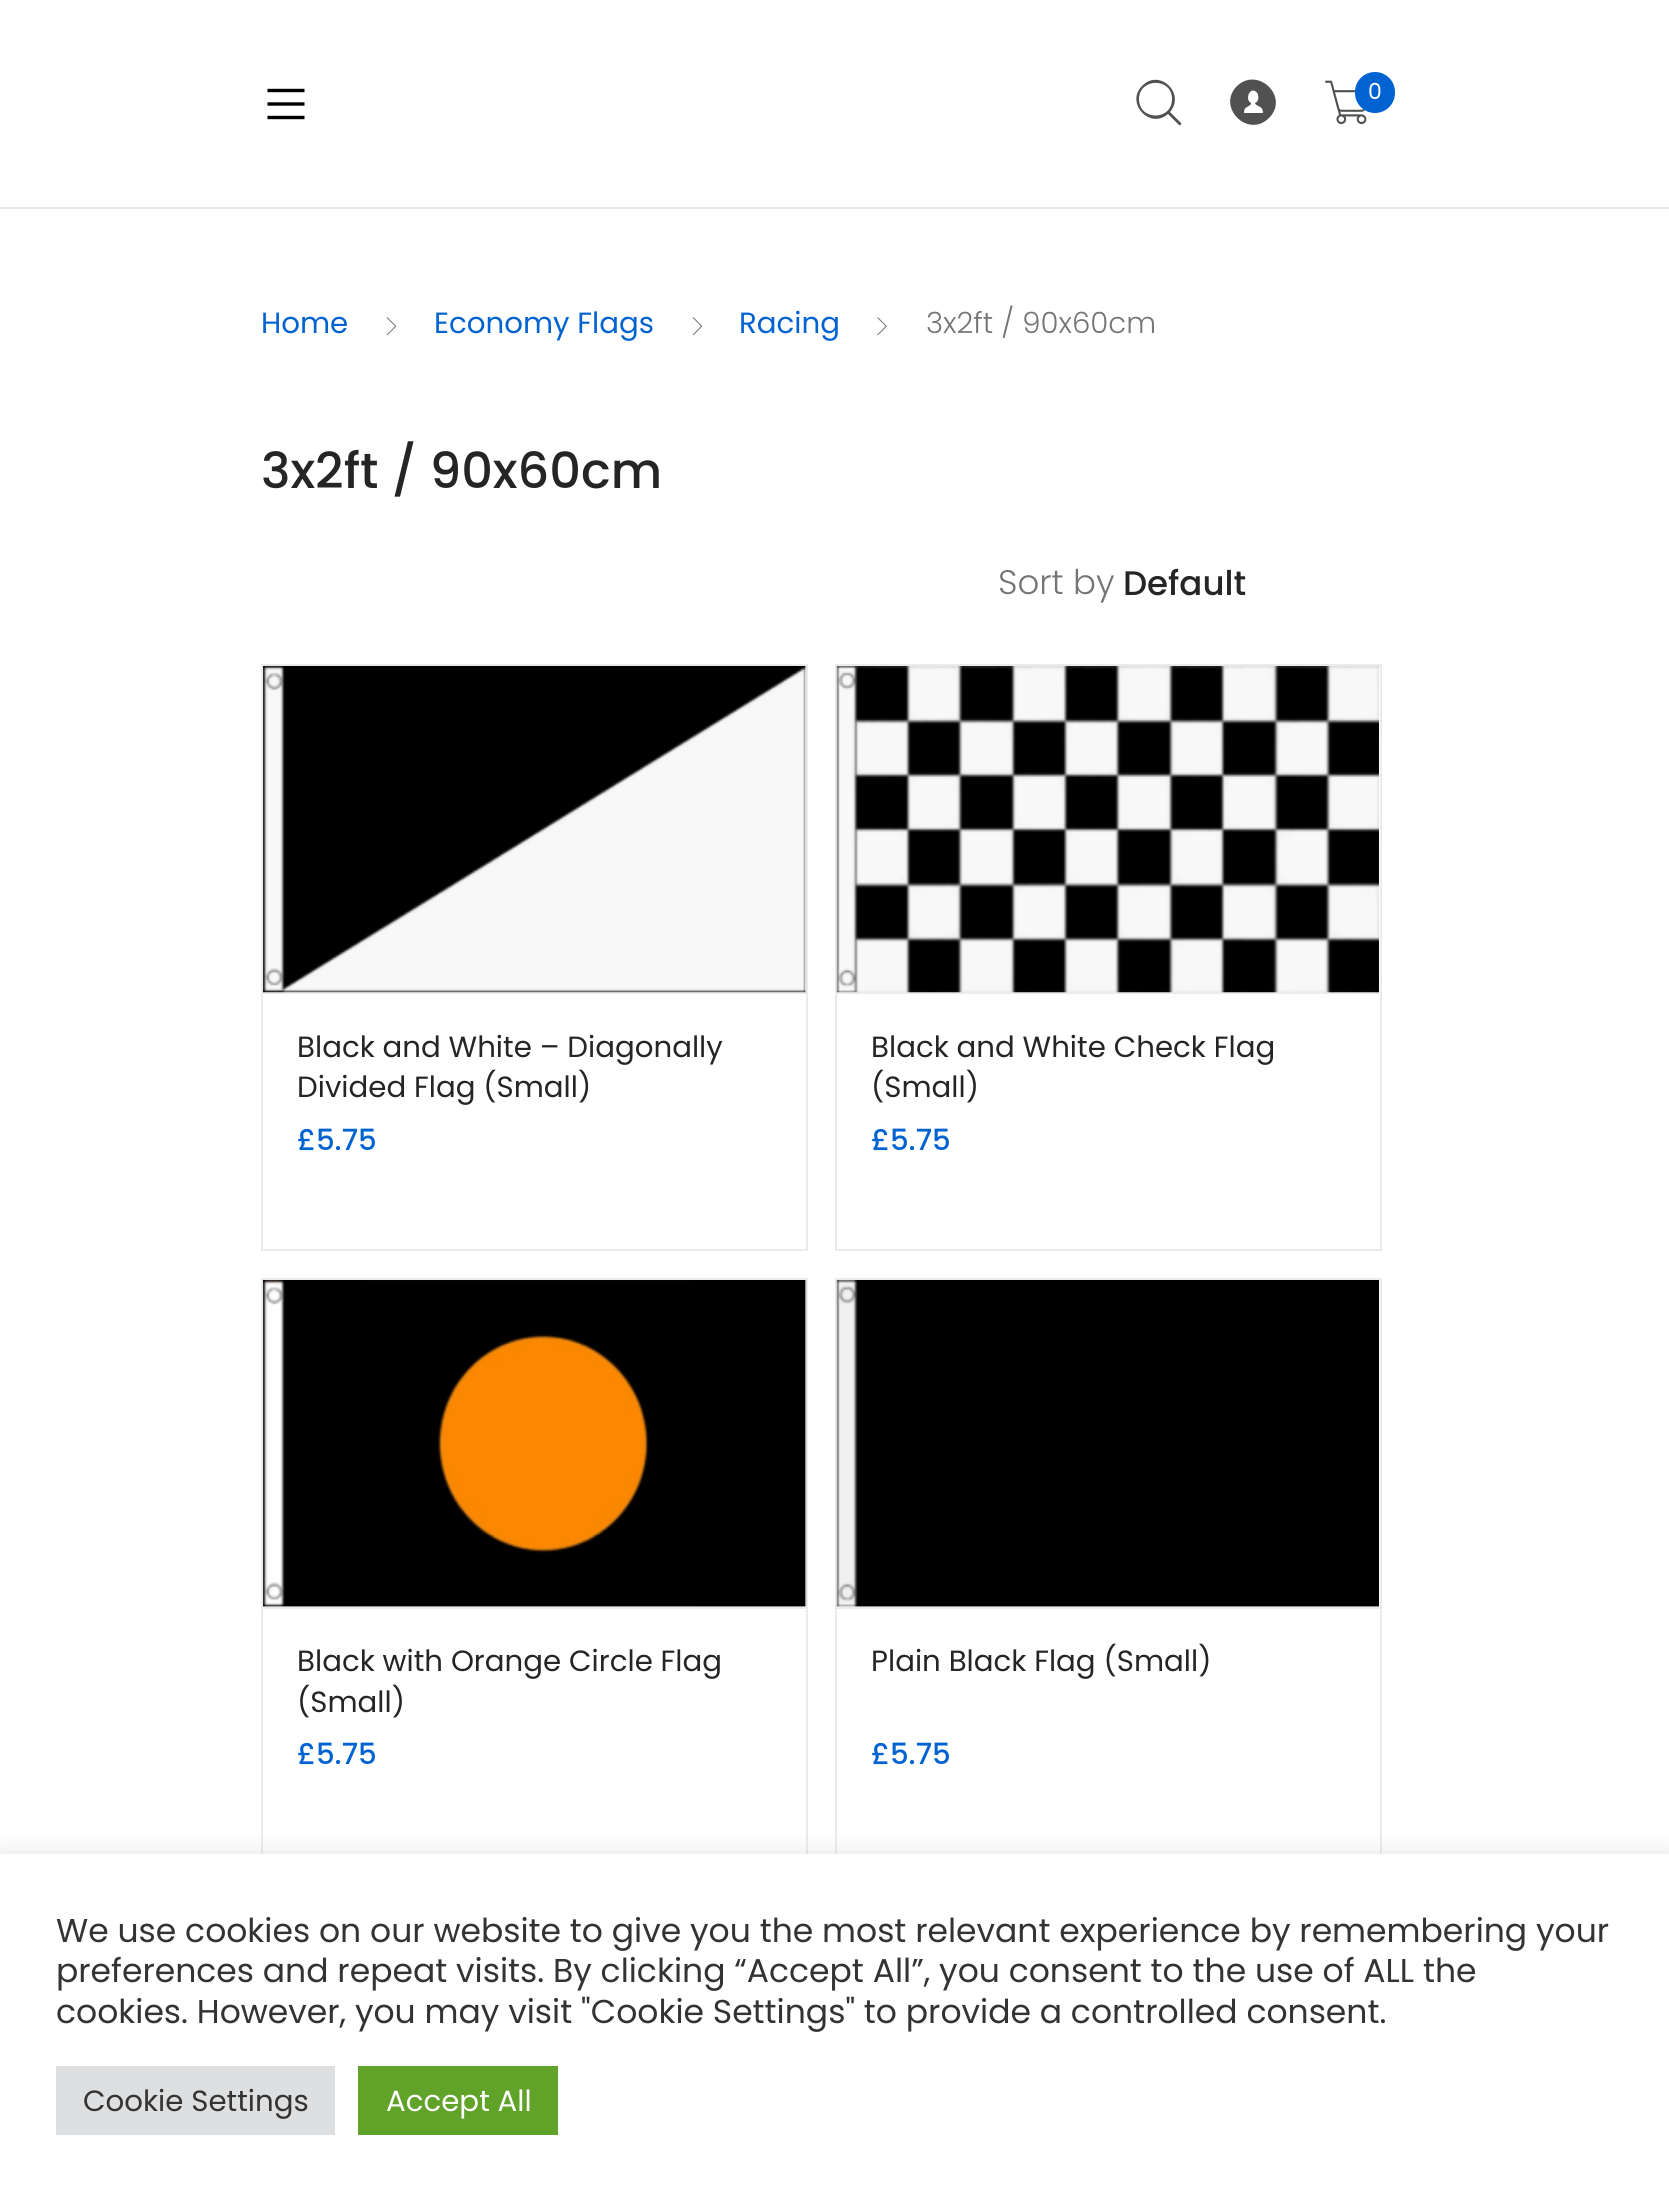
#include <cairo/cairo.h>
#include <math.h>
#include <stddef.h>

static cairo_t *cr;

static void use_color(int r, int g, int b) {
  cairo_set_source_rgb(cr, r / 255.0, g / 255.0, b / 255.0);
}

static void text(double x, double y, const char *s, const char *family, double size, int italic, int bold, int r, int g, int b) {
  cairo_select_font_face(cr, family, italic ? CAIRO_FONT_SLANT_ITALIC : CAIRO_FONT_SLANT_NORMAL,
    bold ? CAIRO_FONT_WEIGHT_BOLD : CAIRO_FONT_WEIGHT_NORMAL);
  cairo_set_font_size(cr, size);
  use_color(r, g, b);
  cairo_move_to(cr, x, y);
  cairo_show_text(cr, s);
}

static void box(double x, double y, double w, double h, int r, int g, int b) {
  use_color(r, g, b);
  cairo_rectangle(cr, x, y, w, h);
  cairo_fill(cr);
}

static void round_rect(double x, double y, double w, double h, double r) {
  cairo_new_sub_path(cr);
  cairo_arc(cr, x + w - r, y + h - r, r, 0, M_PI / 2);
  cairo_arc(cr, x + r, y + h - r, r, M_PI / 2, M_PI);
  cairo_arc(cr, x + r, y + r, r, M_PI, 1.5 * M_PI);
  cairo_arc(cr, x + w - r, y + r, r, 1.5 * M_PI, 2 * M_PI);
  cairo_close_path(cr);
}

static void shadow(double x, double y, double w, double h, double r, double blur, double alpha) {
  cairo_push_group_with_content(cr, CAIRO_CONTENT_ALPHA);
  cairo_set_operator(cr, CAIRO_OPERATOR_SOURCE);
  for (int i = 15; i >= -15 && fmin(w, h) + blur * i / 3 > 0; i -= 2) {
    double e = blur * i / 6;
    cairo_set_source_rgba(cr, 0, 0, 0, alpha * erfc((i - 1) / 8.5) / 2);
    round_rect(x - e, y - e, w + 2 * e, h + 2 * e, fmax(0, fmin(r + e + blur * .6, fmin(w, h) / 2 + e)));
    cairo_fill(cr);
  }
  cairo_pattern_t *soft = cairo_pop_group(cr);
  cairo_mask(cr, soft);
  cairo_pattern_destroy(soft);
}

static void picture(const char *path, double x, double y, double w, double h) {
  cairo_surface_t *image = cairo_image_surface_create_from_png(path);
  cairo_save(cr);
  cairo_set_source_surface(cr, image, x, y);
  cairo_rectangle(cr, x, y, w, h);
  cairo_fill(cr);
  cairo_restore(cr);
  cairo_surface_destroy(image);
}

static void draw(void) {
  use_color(255, 255, 255);
  cairo_paint(cr);
  box(0, 207, 1669, 2, 230, 230, 230);
  cairo_new_path(cr);
  cairo_move_to(cr, 267.5, 90.5);
  cairo_line_to(cr, 304.5, 90.5);
  cairo_move_to(cr, 267.5, 104);
  cairo_line_to(cr, 304.5, 104);
  cairo_move_to(cr, 267.5, 117.5);
  cairo_line_to(cr, 304.5, 117.5);
  use_color(0, 0, 0);
  cairo_set_line_width(cr, 3.4);
  cairo_stroke(cr);
  use_color(81, 81, 81);
  cairo_new_path(cr);
  cairo_move_to(cr, 1181, 123);
  cairo_curve_to(cr, 1182, 124, 1180, 126, 1179, 125);
  cairo_line_to(cr, 1168, 114);
  cairo_curve_to(cr, 1150, 130, 1125, 103, 1142, 86);
  cairo_curve_to(cr, 1159, 68, 1186, 93, 1170, 112);
  cairo_close_path(cr);
  cairo_move_to(cr, 1139, 99);
  cairo_curve_to(cr, 1139, 121, 1172, 121, 1172, 99);
  cairo_curve_to(cr, 1172, 77, 1139, 78, 1139, 99);
  cairo_close_path(cr);
  cairo_fill(cr);
  cairo_new_path(cr);
  cairo_move_to(cr, 1237, 86);
  cairo_curve_to(cr, 1258, 66, 1290, 97, 1269, 118);
  cairo_curve_to(cr, 1248, 139, 1216, 107, 1237, 86);
  cairo_close_path(cr);
  cairo_move_to(cr, 1253, 113);
  cairo_line_to(cr, 1263, 113);
  cairo_curve_to(cr, 1263, 105, 1256, 107, 1255, 103);
  cairo_curve_to(cr, 1258, 102, 1259, 98, 1258, 95);
  cairo_curve_to(cr, 1258, 94, 1257, 92, 1255, 91);
  cairo_curve_to(cr, 1249, 88, 1245, 100, 1251, 103);
  cairo_line_to(cr, 1251, 104);
  cairo_curve_to(cr, 1248, 108, 1244, 106, 1244, 113);
  cairo_close_path(cr);
  cairo_fill(cr);
  picture("img_01.png", 1325, 80, 42, 45);
  use_color(0, 99, 209);
  round_rect(1355, 72, 40, 41, 20);
  cairo_fill(cr);
  picture("img_02.png", 386, 317, 11, 19);
  picture("img_02.png", 692, 317, 11, 19);
  picture("img_03.png", 877, 317, 10, 19);
  cairo_rectangle(cr, 262, 665, 545, 585);
  use_color(235, 235, 235);
  cairo_set_line_width(cr, 2);
  cairo_stroke(cr);
  box(263, 992, 543, 2, 235, 235, 235);
  picture("img_04.png", 263, 666, 544, 327);
  cairo_rectangle(cr, 836, 665, 545, 585);
  cairo_stroke(cr);
  box(837, 992, 542, 2, 235, 235, 235);
  picture("img_05.png", 836, 666, 543, 327);
  cairo_rectangle(cr, 262, 1279, 545, 585);
  cairo_stroke(cr);
  box(263, 1607, 543, 2, 235, 235, 235);
  picture("img_06.png", 263, 1280, 544, 327);
  cairo_rectangle(cr, 836, 1279, 545, 585);
  cairo_stroke(cr);
  box(837, 1607, 542, 2, 235, 235, 235);
  picture("img_07.png", 836, 1280, 543, 327);
  use_color(172, 171, 171);
  shadow(0, 1852, 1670, 349, 0, 11, 0.3);
  box(0, 1854, 1669, 348, 255, 255, 255);
  box(56, 2066, 279, 69, 222, 223, 224);
  box(358, 2066, 200, 69, 97, 162, 41);
  text(1368, 99, "0", "Poppins", 22, 0, 0, 255, 255, 255);
  text(261, 333, "Home", "Poppins", 29.25, 0, 0, 0, 99, 209);
  text(434, 333, "Economy Flags", "Poppins", 29.25, 0, 0, 0, 99, 209);
  text(739, 333, "Racing", "Poppins", 29.25, 0, 0, 0, 99, 209);
  text(926, 333, "3x2ft / 90x60cm", "Poppins Light", 29.25, 0, 0, 117, 117, 117);
  text(261, 488, "3x2ft / 90x60cm", "Poppins Medium", 49.5, 0, 0, 37, 37, 37);
  text(998, 594, "Sort by", "Poppins Light", 34, 0, 0, 117, 117, 117);
  text(1123, 595, "Default", "Poppins Medium", 34, 0, 0, 37, 37, 37);
  text(297, 1057, "Black and White – Diagonally", "Poppins", 29.25, 0, 0, 37, 37, 37);
  text(297, 1097, "Divided Flag (Small)", "Poppins", 29.25, 0, 0, 37, 37, 37);
  text(297, 1150, "£5.75", "Poppins Medium", 29.25, 0, 0, 0, 99, 209);
  text(871, 1057, "Black and White Check Flag", "Poppins", 29.25, 0, 0, 37, 37, 37);
  text(871, 1097, "(Small)", "Poppins", 29.25, 0, 0, 37, 37, 37);
  text(871, 1150, "£5.75", "Poppins Medium", 29.25, 0, 0, 0, 99, 209);
  text(297, 1671, "Black with Orange Circle Flag", "Poppins", 29.25, 0, 0, 37, 37, 37);
  text(297, 1712, "(Small)", "Poppins", 29.25, 0, 0, 37, 37, 37);
  text(297, 1764, "£5.75", "Poppins Medium", 29.25, 0, 0, 0, 99, 209);
  text(871, 1671, "Plain Black Flag (Small)", "Poppins", 29.25, 0, 0, 37, 37, 37);
  text(871, 1764, "£5.75", "Poppins Medium", 29.25, 0, 0, 0, 99, 209);
  text(56, 1942, "We use cookies on our website to give you the most relevant experience by remembering your", "Poppins", 33, 0, 0, 51, 51, 51);
  text(56, 1982, "preferences and repeat visits. By clicking “Accept All”, you consent to the use of ALL the", "Poppins", 33, 0, 0, 51, 51, 51);
  text(56, 2023, "cookies. However, you may visit \"Cookie Settings\" to provide a controlled consent.", "Poppins", 33, 0, 0, 51, 51, 51);
  text(83, 2111, "Cookie Settings", "Poppins", 29.25, 0, 0, 51, 51, 51);
  text(386, 2111, "Accept All", "Poppins", 29.25, 0, 0, 255, 255, 255);
}

int main(void) {
  cairo_surface_t *surface = cairo_image_surface_create(CAIRO_FORMAT_RGB24, 1669, 2202);
  cr = cairo_create(surface);
  cairo_font_options_t *options = cairo_font_options_create();
  cairo_font_options_set_hint_metrics(options, CAIRO_HINT_METRICS_OFF);
  cairo_font_options_set_hint_style(options, CAIRO_HINT_STYLE_NONE);
  cairo_set_font_options(cr, options);
  cairo_set_miter_limit(cr, 4);
  draw();
  cairo_surface_write_to_png(surface, "out.png");
  cairo_font_options_destroy(options);
  cairo_destroy(cr);
  cairo_surface_destroy(surface);
  return 0;
}
